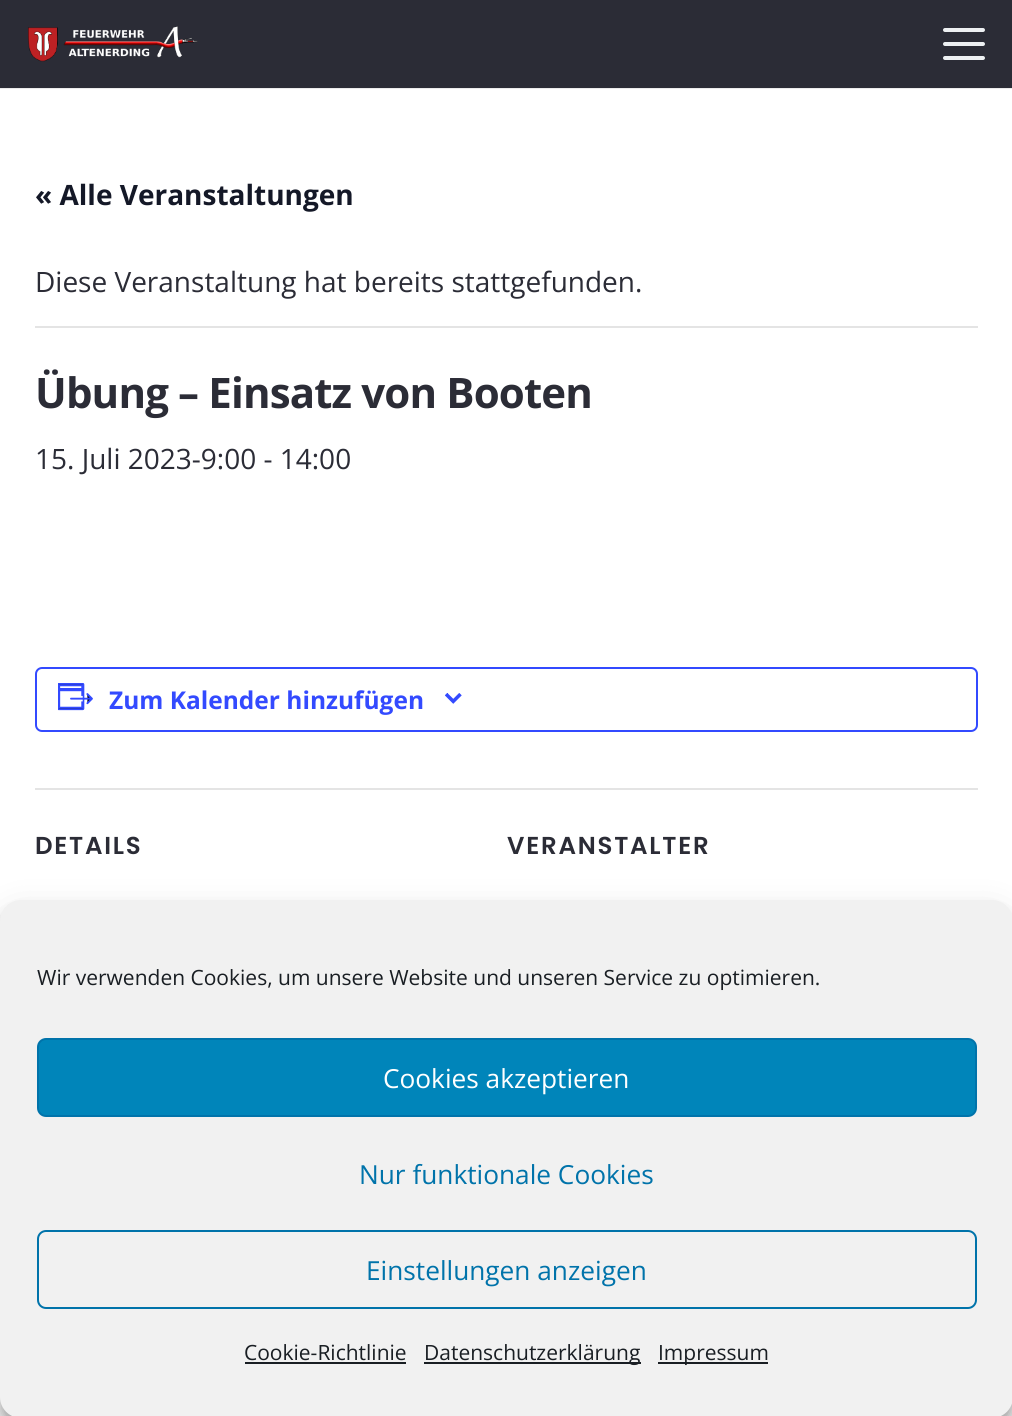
#include <cairo/cairo.h>
#include <math.h>
#include <stddef.h>

static cairo_t *cr;

static void use_color(int r, int g, int b) {
  cairo_set_source_rgb(cr, r / 255.0, g / 255.0, b / 255.0);
}

static void text(double x, double y, const char *s, const char *family, double size, int italic, int bold, int r, int g, int b) {
  cairo_select_font_face(cr, family, italic ? CAIRO_FONT_SLANT_ITALIC : CAIRO_FONT_SLANT_NORMAL,
    bold ? CAIRO_FONT_WEIGHT_BOLD : CAIRO_FONT_WEIGHT_NORMAL);
  cairo_set_font_size(cr, size);
  use_color(r, g, b);
  cairo_move_to(cr, x, y);
  cairo_show_text(cr, s);
}

static void spaced_text(double x, double y, const char *s, double letter, double word) {
  cairo_move_to(cr, x, y);
  while (*s) {
    char ch[5] = {0};
    int n = 0;
    do ch[n++] = *s++; while ((*s & 0xC0) == 0x80);
    cairo_show_text(cr, ch);
    cairo_rel_move_to(cr, letter + word * (*ch == ' '), 0);
  }
}

static void box(double x, double y, double w, double h, int r, int g, int b) {
  use_color(r, g, b);
  cairo_rectangle(cr, x, y, w, h);
  cairo_fill(cr);
}

static void round_rect(double x, double y, double w, double h, double r) {
  cairo_new_sub_path(cr);
  cairo_arc(cr, x + w - r, y + h - r, r, 0, M_PI / 2);
  cairo_arc(cr, x + r, y + h - r, r, M_PI / 2, M_PI);
  cairo_arc(cr, x + r, y + r, r, M_PI, 1.5 * M_PI);
  cairo_arc(cr, x + w - r, y + r, r, 1.5 * M_PI, 2 * M_PI);
  cairo_close_path(cr);
}

static void shadow(double x, double y, double w, double h, double r, double blur, double alpha) {
  cairo_push_group_with_content(cr, CAIRO_CONTENT_ALPHA);
  cairo_set_operator(cr, CAIRO_OPERATOR_SOURCE);
  for (int i = 15; i >= -15 && fmin(w, h) + blur * i / 3 > 0; i -= 2) {
    double e = blur * i / 6;
    cairo_set_source_rgba(cr, 0, 0, 0, alpha * erfc((i - 1) / 8.5) / 2);
    round_rect(x - e, y - e, w + 2 * e, h + 2 * e, fmax(0, fmin(r + e + blur * .6, fmin(w, h) / 2 + e)));
    cairo_fill(cr);
  }
  cairo_pattern_t *soft = cairo_pop_group(cr);
  cairo_mask(cr, soft);
  cairo_pattern_destroy(soft);
}

static void picture(const char *path, double x, double y, double w, double h) {
  cairo_surface_t *image = cairo_image_surface_create_from_png(path);
  cairo_save(cr);
  cairo_set_source_surface(cr, image, x, y);
  cairo_rectangle(cr, x, y, w, h);
  cairo_fill(cr);
  cairo_restore(cr);
  cairo_surface_destroy(image);
}

static void draw(void) {
  use_color(255, 255, 255);
  cairo_paint(cr);
  box(0, 88, 1012, 1, 235, 235, 235);
  box(0, 0, 1012, 88, 43, 44, 54);
  picture("img_01.png", 28, 26, 170, 36);
  use_color(237, 240, 242);
  round_rect(943, 42, 42, 4, 2);
  cairo_fill(cr);
  round_rect(943, 28, 42, 4, 2);
  cairo_fill(cr);
  round_rect(943, 56, 42, 4, 2);
  cairo_fill(cr);
  box(35, 326, 943, 2, 228, 228, 228);
  round_rect(36, 668, 941, 63, 6);
  use_color(51, 74, 255);
  cairo_stroke(cr);
  picture("img_02.png", 58, 683, 35, 28);
  picture("img_03.png", 445, 693, 17, 11);
  box(35, 788, 943, 2, 228, 228, 228);
  use_color(0, 0, 0);
  shadow(0, 910, 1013, 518, 21, 5, 0.23);
  shadow(0, 917, 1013, 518, 21, 17.5, 0.19);
  use_color(241, 241, 241);
  round_rect(1, 901, 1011, 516, 20);
  cairo_fill_preserve(cr);
  cairo_stroke(cr);
  use_color(0, 133, 186);
  round_rect(38, 1039, 938, 77, 8);
  cairo_fill_preserve(cr);
  use_color(0, 115, 170);
  cairo_stroke(cr);
  round_rect(38, 1231, 938, 77, 8);
  cairo_stroke(cr);
  box(245, 1362, 161, 2, 25, 30, 35);
  box(424, 1362, 217, 2, 25, 30, 35);
  box(658, 1362, 110, 2, 25, 30, 35);
  text(35, 205, "« Alle Veranstaltungen", "Open Sans", 28, 0, 1, 20, 24, 39);
  text(35, 292, "Diese Veranstaltung hat bereits stattgefunden.", "Open Sans", 28, 0, 0, 43, 44, 54);
  cairo_select_font_face(cr, "Open Sans", CAIRO_FONT_SLANT_NORMAL, CAIRO_FONT_WEIGHT_BOLD);
  cairo_set_font_size(cr, 42);
  spaced_text(35, 408, "Übung – Einsatz von Booten", -0.85, 0);
  text(35, 469, "15. Juli 2023-9:00 - 14:00", "Open Sans", 28, 0, 0, 43, 44, 54);
  text(109, 709, "Zum Kalender hinzufügen", "Open Sans", 24.5, 0, 1, 51, 74, 255);
  cairo_select_font_face(cr, "Poppins SemiBold", CAIRO_FONT_SLANT_NORMAL, CAIRO_FONT_WEIGHT_NORMAL);
  use_color(43, 44, 54);
  spaced_text(35, 854, "DETAILS", 1.75, 0);
  spaced_text(507, 854, "VERANSTALTER", 1.75, 0);
  text(37, 985, "Wir verwenden Cookies, um unsere Website und unseren Service zu optimieren.", "Open Sans", 21, 0, 0, 25, 30, 35);
  text(383, 1088, "Cookies akzeptieren", "Open Sans", 26.25, 0, 0, 255, 255, 255);
  text(359, 1184, "Nur funktionale Cookies", "Open Sans", 26.25, 0, 0, 0, 115, 170);
  text(366, 1280, "Einstellungen anzeigen", "Open Sans", 26.25, 0, 0, 0, 115, 170);
  text(244, 1360, "Cookie-Richtlinie", "Open Sans", 21, 0, 0, 25, 30, 35);
  text(424, 1360, "Datenschutzerklärung", "Open Sans", 21, 0, 0, 25, 30, 35);
  text(658, 1360, "Impressum", "Open Sans", 21, 0, 0, 25, 30, 35);
}

int main(void) {
  cairo_surface_t *surface = cairo_image_surface_create(CAIRO_FORMAT_RGB24, 1012, 1416);
  cr = cairo_create(surface);
  cairo_font_options_t *options = cairo_font_options_create();
  cairo_font_options_set_hint_metrics(options, CAIRO_HINT_METRICS_OFF);
  cairo_font_options_set_hint_style(options, CAIRO_HINT_STYLE_NONE);
  cairo_set_font_options(cr, options);
  cairo_set_miter_limit(cr, 4);
  draw();
  cairo_surface_write_to_png(surface, "out.png");
  cairo_font_options_destroy(options);
  cairo_destroy(cr);
  cairo_surface_destroy(surface);
  return 0;
}
